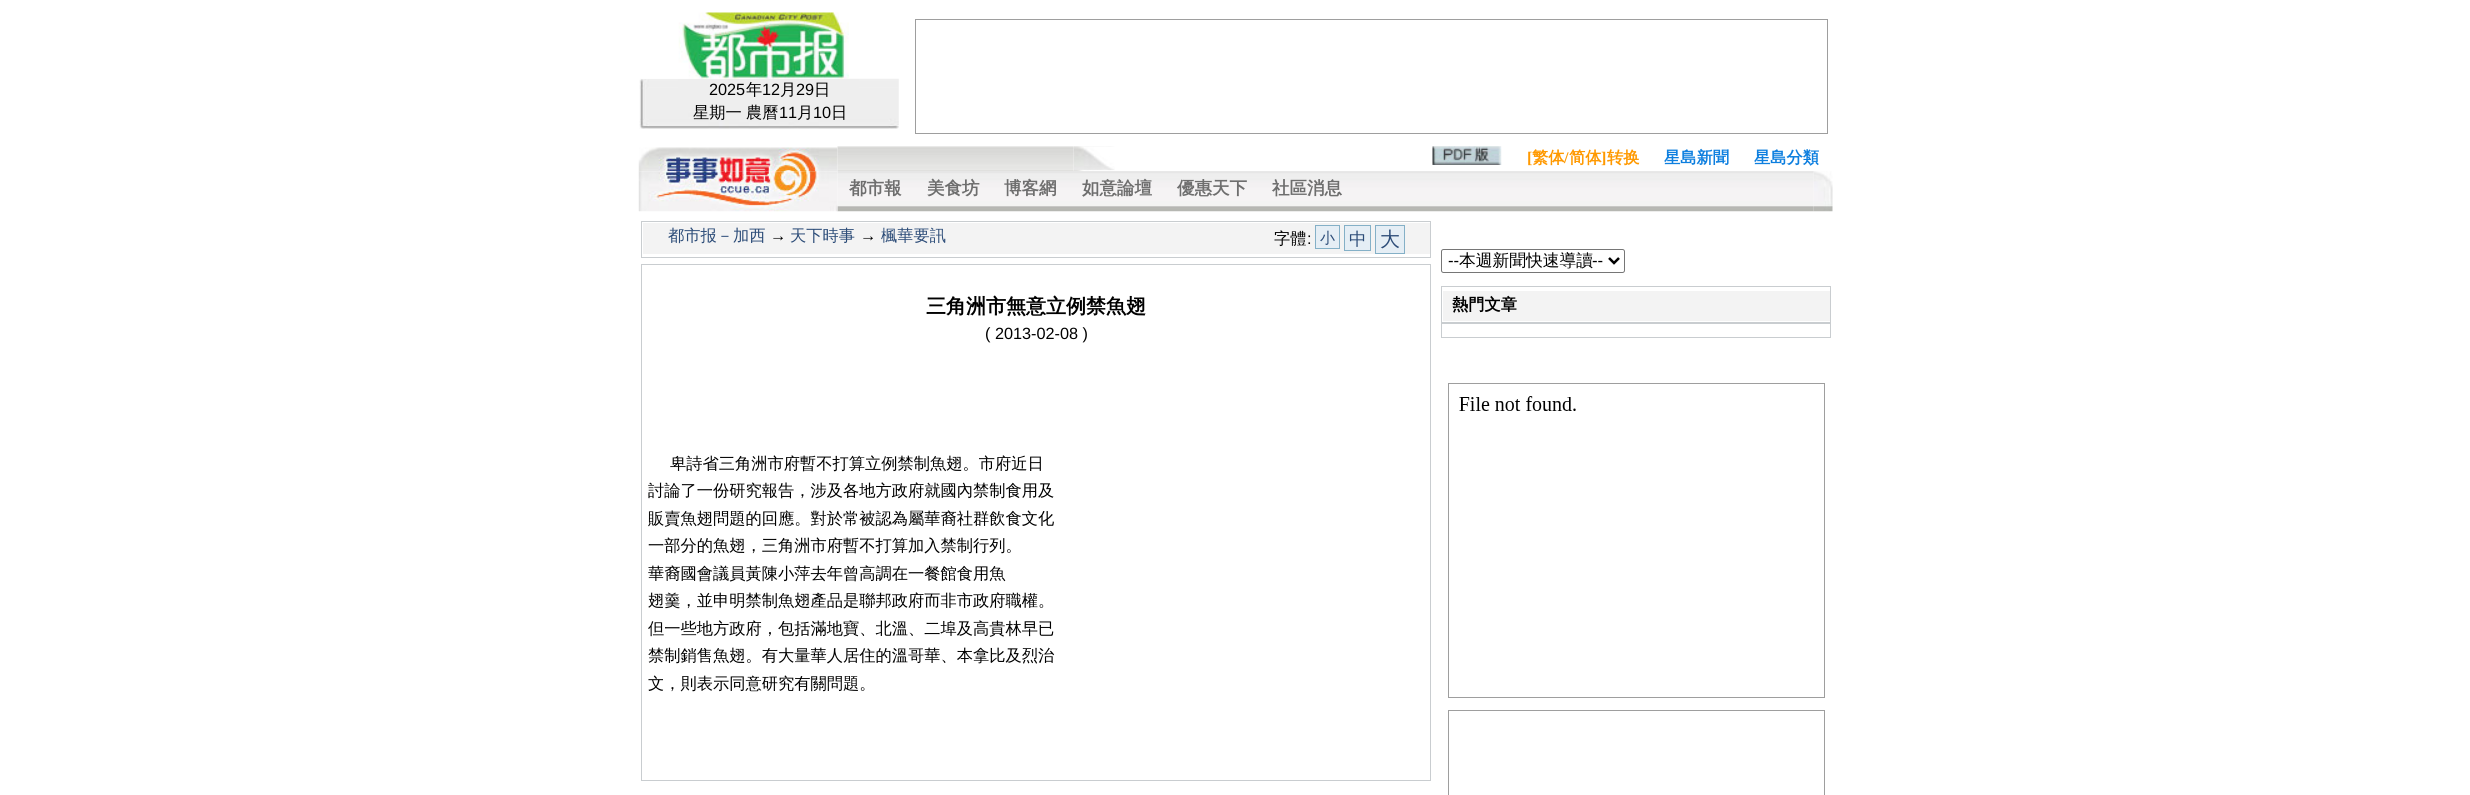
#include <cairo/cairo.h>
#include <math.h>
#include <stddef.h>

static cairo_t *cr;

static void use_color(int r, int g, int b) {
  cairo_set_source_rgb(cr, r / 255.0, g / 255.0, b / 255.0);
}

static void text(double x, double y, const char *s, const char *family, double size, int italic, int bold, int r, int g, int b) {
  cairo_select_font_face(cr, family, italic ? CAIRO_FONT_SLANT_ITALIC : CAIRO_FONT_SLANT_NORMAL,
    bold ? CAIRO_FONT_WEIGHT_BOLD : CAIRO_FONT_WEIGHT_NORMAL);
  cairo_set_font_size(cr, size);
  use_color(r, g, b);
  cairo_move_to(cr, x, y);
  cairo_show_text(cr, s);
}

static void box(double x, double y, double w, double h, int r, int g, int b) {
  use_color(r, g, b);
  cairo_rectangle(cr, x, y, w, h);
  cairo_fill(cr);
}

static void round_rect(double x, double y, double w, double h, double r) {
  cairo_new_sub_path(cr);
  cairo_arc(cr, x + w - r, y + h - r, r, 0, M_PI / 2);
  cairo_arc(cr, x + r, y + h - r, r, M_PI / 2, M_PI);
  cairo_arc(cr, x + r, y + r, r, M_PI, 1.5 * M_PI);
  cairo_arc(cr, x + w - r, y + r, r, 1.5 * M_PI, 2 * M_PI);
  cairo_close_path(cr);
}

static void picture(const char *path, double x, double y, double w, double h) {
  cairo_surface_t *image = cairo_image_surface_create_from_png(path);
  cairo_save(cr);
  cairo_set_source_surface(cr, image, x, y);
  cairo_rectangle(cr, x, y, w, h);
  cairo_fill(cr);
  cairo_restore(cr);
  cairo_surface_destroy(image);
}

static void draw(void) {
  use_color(255, 255, 255);
  cairo_paint(cr);
  picture("img_02.png", 639, 78, 260, 51);
  picture("img_01.png", 641, 12, 208, 67);
  cairo_rectangle(cr, 915.5, 19.5, 912, 114);
  use_color(158, 158, 158);
  cairo_set_line_width(cr, 1);
  cairo_stroke(cr);
  picture("img_04.png", 837, 146, 237, 26);
  picture("img_05.png", 1074, 146, 41, 26);
  picture("img_08.png", 837, 171, 977, 41);
  picture("img_03.png", 638, 147, 200, 25);
  picture("img_06.png", 1432, 146, 70, 19);
  picture("img_07.png", 638, 171, 200, 41);
  picture("img_09.png", 1813, 171, 20, 41);
  cairo_rectangle(cr, 641.5, 221.5, 789, 36);
  use_color(201, 205, 208);
  cairo_stroke(cr);
  box(643, 223, 787, 31, 243, 243, 243);
  use_color(229, 238, 245);
  cairo_rectangle(cr, 1315.5, 225.5, 24, 23);
  cairo_fill_preserve(cr);
  use_color(132, 176, 199);
  cairo_stroke(cr);
  use_color(229, 238, 245);
  cairo_rectangle(cr, 1344.5, 225.5, 26, 25);
  cairo_fill_preserve(cr);
  use_color(132, 176, 199);
  cairo_stroke(cr);
  use_color(229, 238, 245);
  cairo_rectangle(cr, 1375.5, 225.5, 29, 28);
  cairo_fill_preserve(cr);
  use_color(132, 176, 199);
  cairo_stroke(cr);
  cairo_rectangle(cr, 641.5, 264.5, 789, 516);
  use_color(201, 205, 208);
  cairo_stroke(cr);
  round_rect(1441.5, 249.5, 183, 23, 2);
  use_color(118, 118, 118);
  cairo_stroke(cr);
  cairo_new_path(cr);
  cairo_move_to(cr, 1609, 258);
  cairo_line_to(cr, 1614, 263);
  cairo_line_to(cr, 1619, 258);
  use_color(0, 0, 0);
  cairo_set_line_width(cr, 2.5);
  cairo_stroke(cr);
  cairo_rectangle(cr, 1441.5, 286.5, 389, 36);
  use_color(201, 205, 208);
  cairo_set_line_width(cr, 1);
  cairo_stroke(cr);
  box(1443, 291, 387, 30, 243, 243, 243);
  cairo_rectangle(cr, 1441.5, 323.5, 389, 14);
  use_color(201, 205, 208);
  cairo_stroke(cr);
  cairo_rectangle(cr, 1448.5, 383.5, 376, 314);
  use_color(158, 158, 158);
  cairo_stroke(cr);
  picture("img_10.png", 1459, 396, 117, 15);
  cairo_rectangle(cr, 1448.5, 710.5, 376, 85);
  cairo_stroke(cr);
  text(709, 95, "2025", "Liberation Sans", 16.25, 0, 0, 0, 0, 0);
  text(746, 95, "年", "WenQuanYi Zen Hei Medium", 16.25, 0, 0, 0, 0, 0);
  text(762, 95, "12", "Liberation Sans", 16.25, 0, 0, 0, 0, 0);
  text(780, 95, "月", "WenQuanYi Zen Hei Medium", 16.25, 0, 0, 0, 0, 0);
  text(796, 95, "29", "Liberation Sans", 16.25, 0, 0, 0, 0, 0);
  text(814, 95, "日", "WenQuanYi Zen Hei Medium", 16.25, 0, 0, 0, 0, 0);
  text(693, 118, "星期一", "WenQuanYi Zen Hei Medium", 16.25, 0, 0, 0, 0, 0);
  text(746, 118, "農曆", "WenQuanYi Zen Hei Medium", 16.25, 0, 0, 0, 0, 0);
  text(779, 118, "11", "Liberation Sans", 16.25, 0, 0, 0, 0, 0);
  text(797, 118, "月", "WenQuanYi Zen Hei Medium", 16.25, 0, 0, 0, 0, 0);
  text(813, 118, "10", "Liberation Sans", 16.25, 0, 0, 0, 0, 0);
  text(831, 118, "日", "WenQuanYi Zen Hei Medium", 16.25, 0, 0, 0, 0, 0);
  text(1527, 163, "[", "Liberation Serif", 16.25, 0, 1, 255, 153, 0);
  text(1532, 163, "繁体", "WenQuanYi Zen Hei", 16.25, 0, 1, 255, 153, 0);
  text(1564, 163, "/", "Liberation Serif", 16.25, 0, 1, 255, 153, 0);
  text(1569, 163, "简体", "WenQuanYi Zen Hei", 16.25, 0, 1, 255, 153, 0);
  text(1601, 163, "]", "Liberation Serif", 16.25, 0, 1, 255, 153, 0);
  text(1607, 163, "转换", "WenQuanYi Zen Hei", 16.25, 0, 1, 255, 153, 0);
  text(1664, 163, "星島新聞", "WenQuanYi Zen Hei", 16.25, 0, 1, 14, 127, 223);
  text(1754, 163, "星島分類", "WenQuanYi Zen Hei", 16.25, 0, 1, 14, 127, 223);
  text(849, 194, "都市報", "WenQuanYi Zen Hei", 17.5, 0, 1, 110, 110, 110);
  text(927, 194, "美食坊", "WenQuanYi Zen Hei", 17.5, 0, 1, 110, 110, 110);
  text(1004, 194, "博客網", "WenQuanYi Zen Hei", 17.5, 0, 1, 110, 110, 110);
  text(1082, 194, "如意論壇", "WenQuanYi Zen Hei", 17.5, 0, 1, 110, 110, 110);
  text(1177, 194, "優惠天下", "WenQuanYi Zen Hei", 17.5, 0, 1, 110, 110, 110);
  text(1272, 194, "社區消息", "WenQuanYi Zen Hei", 17.5, 0, 1, 110, 110, 110);
  text(668, 241, "都市报－加西", "WenQuanYi Zen Hei Medium", 16.25, 0, 0, 44, 76, 120);
  text(770, 241, "→", "Liberation Sans", 16.25, 0, 0, 0, 0, 0);
  text(790, 241, "天下時事", "WenQuanYi Zen Hei Medium", 16.25, 0, 0, 44, 76, 120);
  text(860, 241, "→", "Liberation Sans", 16.25, 0, 0, 0, 0, 0);
  text(881, 241, "楓華要訊", "WenQuanYi Zen Hei Medium", 16.25, 0, 0, 44, 76, 120);
  text(1274, 244, "字體", "WenQuanYi Zen Hei Medium", 16.25, 0, 0, 0, 0, 0);
  text(1307, 244, ":", "Liberation Sans", 16.25, 0, 0, 0, 0, 0);
  text(1320, 243, "小", "WenQuanYi Zen Hei Medium", 15, 0, 0, 44, 76, 120);
  text(1349, 245, "中", "WenQuanYi Zen Hei Medium", 17.5, 0, 0, 44, 76, 120);
  text(1380, 246, "大", "WenQuanYi Zen Hei Medium", 20, 0, 0, 44, 76, 120);
  text(926, 313, "三角洲市無意立例禁魚翅", "WenQuanYi Zen Hei", 20, 0, 1, 0, 0, 0);
  text(985, 339, "( 2013-02-08 )", "Liberation Sans", 16.25, 0, 0, 0, 0, 0);
  text(670, 469, "卑詩省三角洲市府暫不打算立例禁制魚翅。市府近日", "WenQuanYi Zen Hei Medium", 16.25, 0, 0, 0, 0, 0);
  text(648, 496, "討論了一份研究報告，涉及各地方政府就國內禁制食用及", "WenQuanYi Zen Hei Medium", 16.25, 0, 0, 0, 0, 0);
  text(648, 524, "販賣魚翅問題的回應。對於常被認為屬華裔社群飲食文化", "WenQuanYi Zen Hei Medium", 16.25, 0, 0, 0, 0, 0);
  text(648, 551, "一部分的魚翅，三角洲市府暫不打算加入禁制行列。", "WenQuanYi Zen Hei Medium", 16.25, 0, 0, 0, 0, 0);
  text(648, 579, "華裔國會議員黃陳小萍去年曾高調在一餐館食用魚", "WenQuanYi Zen Hei Medium", 16.25, 0, 0, 0, 0, 0);
  text(648, 606, "翅羹，並申明禁制魚翅產品是聯邦政府而非市政府職權。", "WenQuanYi Zen Hei Medium", 16.25, 0, 0, 0, 0, 0);
  text(648, 634, "但一些地方政府，包括滿地寶、北溫、二埠及高貴林早已", "WenQuanYi Zen Hei Medium", 16.25, 0, 0, 0, 0, 0);
  text(648, 661, "禁制銷售魚翅。有大量華人居住的溫哥華、本拿比及烈治", "WenQuanYi Zen Hei Medium", 16.25, 0, 0, 0, 0, 0);
  text(648, 689, "文，則表示同意研究有關問題。", "WenQuanYi Zen Hei Medium", 16.25, 0, 0, 0, 0, 0);
  text(1448, 266, "--", "Liberation Sans", 16.75, 0, 0, 0, 0, 0);
  text(1459, 266, "本週新聞快速導讀", "WenQuanYi Zen Hei Medium", 16.75, 0, 0, 0, 0, 0);
  text(1592, 266, "--", "Liberation Sans", 16.75, 0, 0, 0, 0, 0);
  text(1452, 310, "熱門文章", "WenQuanYi Zen Hei", 16.25, 0, 1, 0, 0, 0);
}

int main(void) {
  cairo_surface_t *surface = cairo_image_surface_create(CAIRO_FORMAT_RGB24, 2470, 795);
  cr = cairo_create(surface);
  cairo_font_options_t *options = cairo_font_options_create();
  cairo_font_options_set_hint_metrics(options, CAIRO_HINT_METRICS_OFF);
  cairo_font_options_set_hint_style(options, CAIRO_HINT_STYLE_NONE);
  cairo_set_font_options(cr, options);
  cairo_set_miter_limit(cr, 4);
  draw();
  cairo_surface_write_to_png(surface, "out.png");
  cairo_font_options_destroy(options);
  cairo_destroy(cr);
  cairo_surface_destroy(surface);
  return 0;
}
